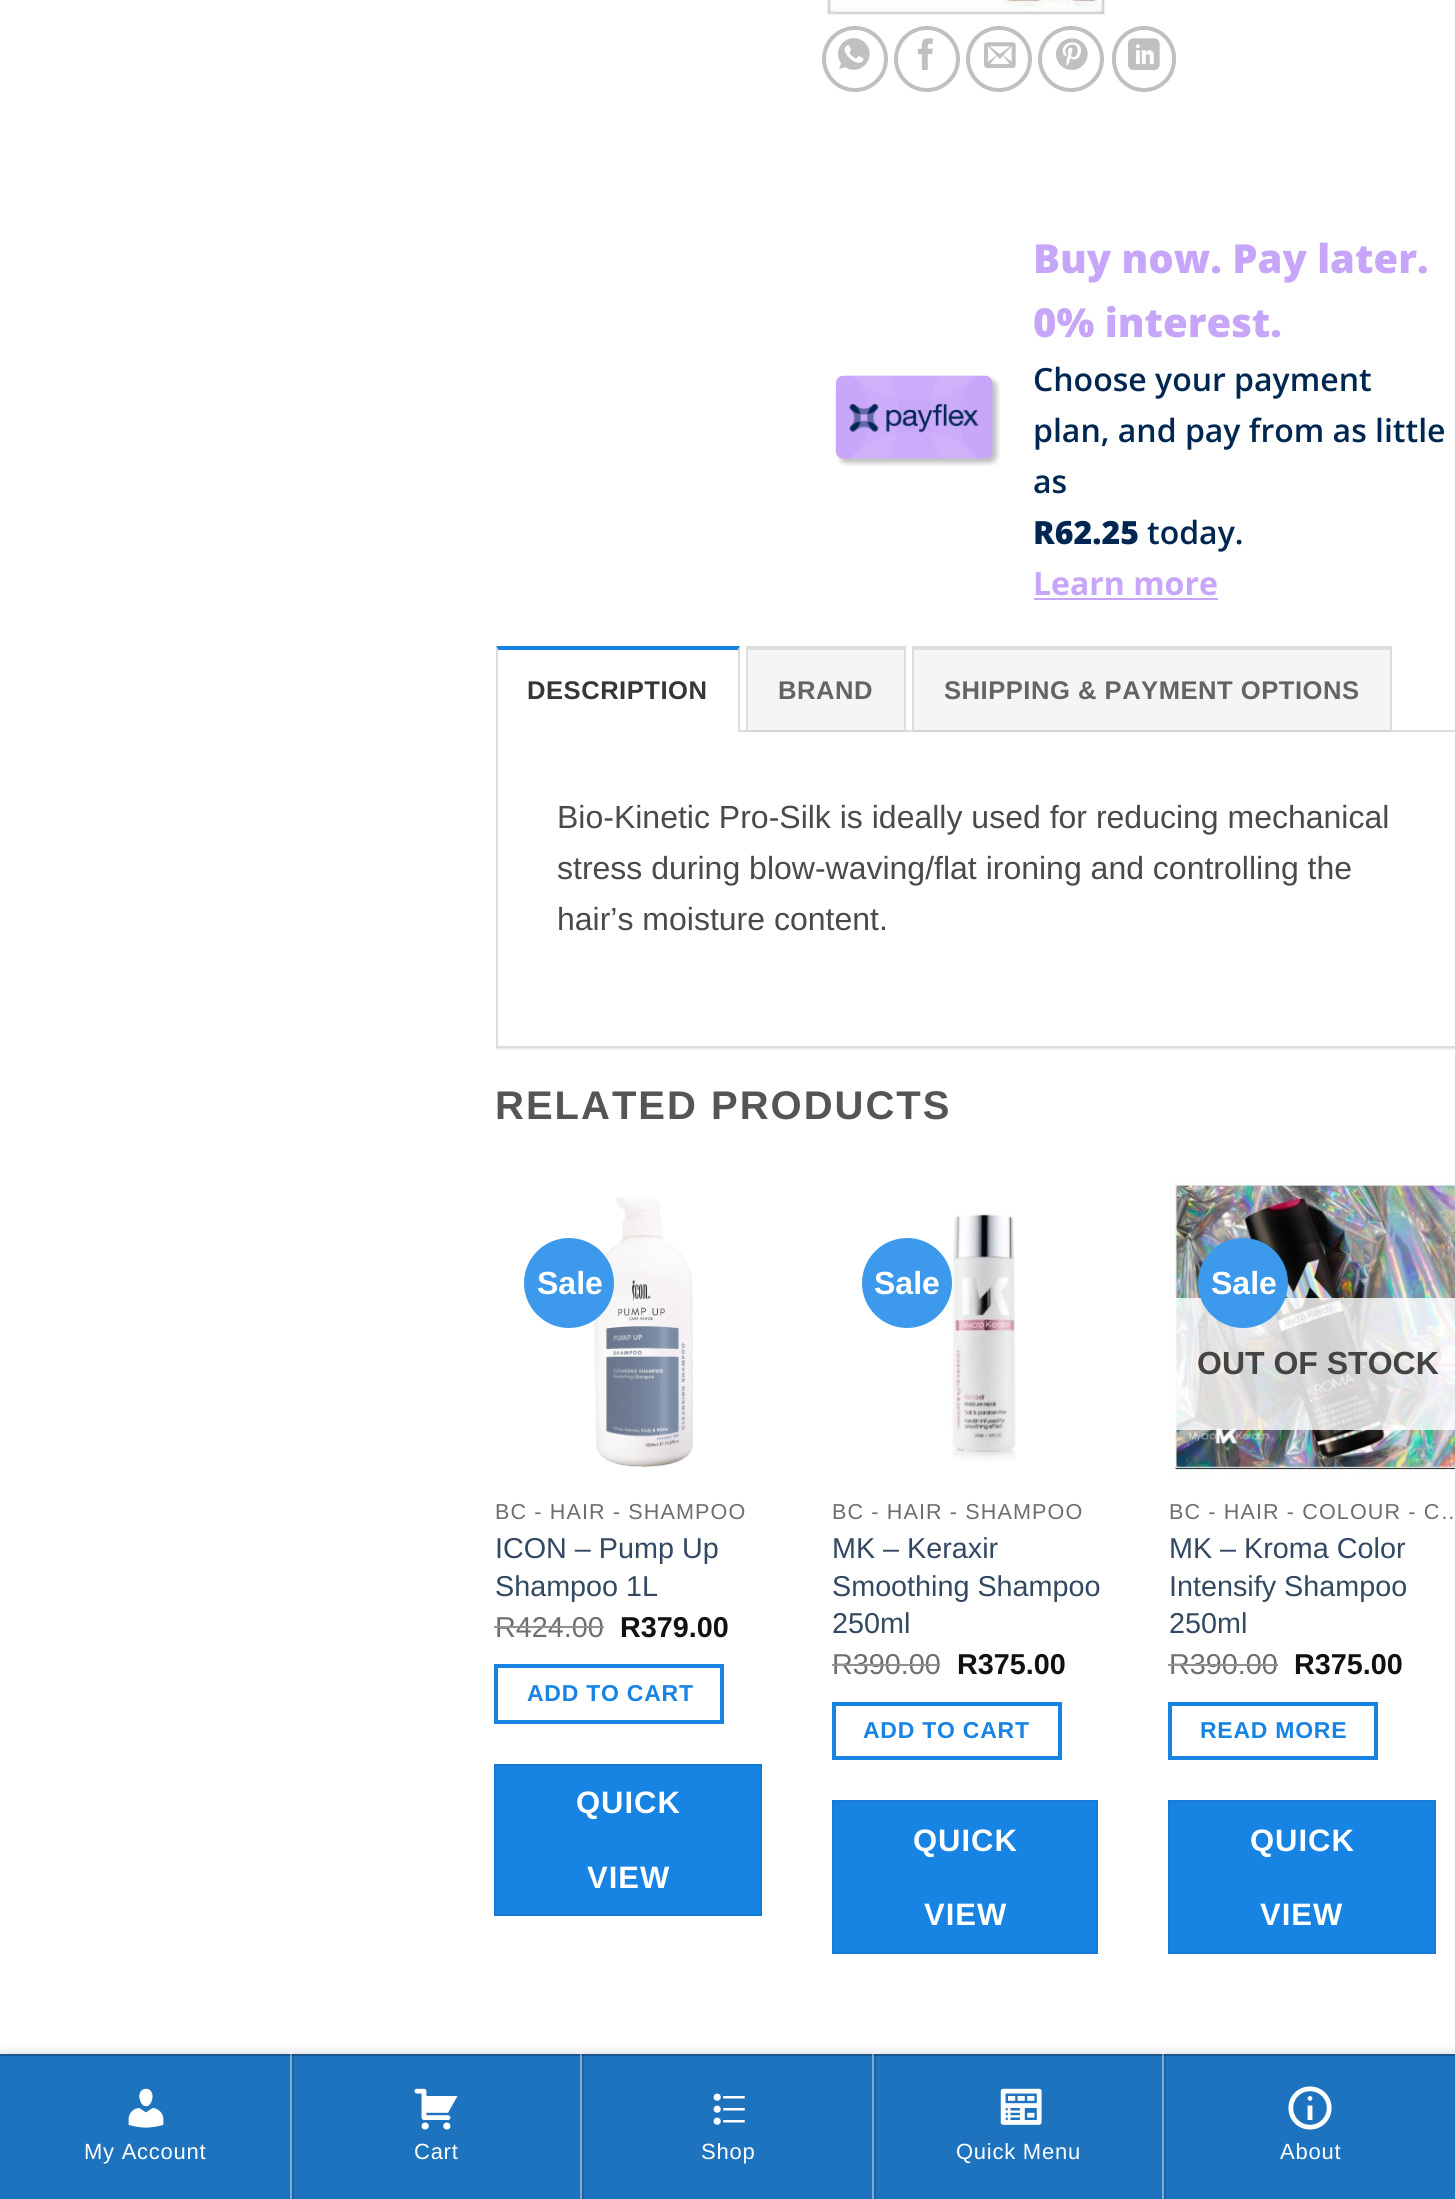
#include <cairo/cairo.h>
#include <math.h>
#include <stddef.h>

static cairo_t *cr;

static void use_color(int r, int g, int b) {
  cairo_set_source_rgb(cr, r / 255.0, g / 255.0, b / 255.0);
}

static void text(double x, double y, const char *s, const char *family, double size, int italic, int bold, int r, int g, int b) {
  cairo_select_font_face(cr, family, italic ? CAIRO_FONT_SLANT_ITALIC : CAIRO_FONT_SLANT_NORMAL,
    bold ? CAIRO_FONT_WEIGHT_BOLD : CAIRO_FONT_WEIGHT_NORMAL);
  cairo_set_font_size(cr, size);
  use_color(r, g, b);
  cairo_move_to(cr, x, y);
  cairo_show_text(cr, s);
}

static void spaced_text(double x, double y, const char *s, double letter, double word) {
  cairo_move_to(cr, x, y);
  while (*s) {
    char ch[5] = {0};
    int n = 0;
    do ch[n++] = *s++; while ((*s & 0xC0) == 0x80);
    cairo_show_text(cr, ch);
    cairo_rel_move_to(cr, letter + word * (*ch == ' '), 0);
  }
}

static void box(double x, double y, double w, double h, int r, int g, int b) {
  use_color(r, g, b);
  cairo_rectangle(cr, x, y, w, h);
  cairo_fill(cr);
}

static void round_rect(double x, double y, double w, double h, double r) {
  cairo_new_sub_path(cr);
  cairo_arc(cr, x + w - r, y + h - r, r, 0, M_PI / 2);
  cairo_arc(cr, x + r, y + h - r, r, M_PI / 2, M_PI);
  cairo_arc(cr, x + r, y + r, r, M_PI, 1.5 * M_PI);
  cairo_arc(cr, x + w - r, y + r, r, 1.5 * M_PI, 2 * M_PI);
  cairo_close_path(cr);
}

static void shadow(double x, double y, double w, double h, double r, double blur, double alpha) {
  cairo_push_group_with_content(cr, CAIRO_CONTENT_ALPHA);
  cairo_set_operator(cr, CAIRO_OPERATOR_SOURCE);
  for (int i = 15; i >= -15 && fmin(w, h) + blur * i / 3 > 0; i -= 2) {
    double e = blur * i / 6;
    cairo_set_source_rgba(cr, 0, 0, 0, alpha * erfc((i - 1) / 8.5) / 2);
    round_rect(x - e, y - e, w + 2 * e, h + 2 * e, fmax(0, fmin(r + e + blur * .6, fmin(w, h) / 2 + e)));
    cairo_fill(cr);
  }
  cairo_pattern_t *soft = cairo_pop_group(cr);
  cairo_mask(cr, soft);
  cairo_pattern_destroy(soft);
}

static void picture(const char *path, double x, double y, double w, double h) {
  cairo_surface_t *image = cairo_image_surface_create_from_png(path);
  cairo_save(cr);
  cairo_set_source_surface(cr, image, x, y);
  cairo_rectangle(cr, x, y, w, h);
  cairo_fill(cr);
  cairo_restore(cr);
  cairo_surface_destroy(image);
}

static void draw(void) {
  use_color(255, 255, 255);
  cairo_paint(cr);
  picture("img_01.png", 826, 0, 280, 15);
  cairo_arc(cr, 855, 59, 31, 0, 2 * M_PI);
  use_color(192, 192, 192);
  cairo_set_line_width(cr, 4);
  cairo_stroke(cr);
  picture("img_02.png", 838, 38, 32, 32);
  cairo_arc(cr, 927, 59, 31, 0, 2 * M_PI);
  cairo_stroke(cr);
  picture("img_03.png", 917, 38, 16, 32);
  cairo_arc(cr, 999, 59, 31, 0, 2 * M_PI);
  cairo_stroke(cr);
  picture("img_04.png", 984, 42, 32, 26);
  cairo_arc(cr, 1071, 59, 31, 0, 2 * M_PI);
  cairo_stroke(cr);
  picture("img_05.png", 1056, 38, 32, 32);
  round_rect(1114, 28, 60, 62, 30);
  cairo_stroke(cr);
  picture("img_06.png", 1128, 38, 32, 32);
  picture("img_07.png", 835, 375, 165, 91);
  box(1034, 598, 184, 2, 199, 165, 249);
  cairo_rectangle(cr, 497, 731, 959, 316);
  use_color(221, 221, 221);
  cairo_set_line_width(cr, 2);
  cairo_stroke(cr);
  box(496, 730, 244, 2, 255, 255, 255);
  use_color(23, 131, 226);
  cairo_new_path(cr);
  cairo_move_to(cr, 496, 646);
  cairo_line_to(cr, 740, 646);
  cairo_line_to(cr, 738, 650);
  cairo_line_to(cr, 498, 650);
  cairo_close_path(cr);
  cairo_fill(cr);
  use_color(221, 221, 221);
  cairo_new_path(cr);
  cairo_move_to(cr, 740, 646);
  cairo_line_to(cr, 740, 732);
  cairo_line_to(cr, 738, 732);
  cairo_line_to(cr, 738, 650);
  cairo_close_path(cr);
  cairo_fill(cr);
  cairo_new_path(cr);
  cairo_move_to(cr, 496, 732);
  cairo_line_to(cr, 496, 646);
  cairo_line_to(cr, 498, 650);
  cairo_line_to(cr, 498, 732);
  cairo_close_path(cr);
  cairo_fill(cr);
  cairo_set_source_rgba(cr, 0, 0, 0, 0.04);
  cairo_rectangle(cr, 748, 650, 156, 82);
  cairo_fill(cr);
  box(746, 646, 160, 4, 221, 221, 221);
  box(904, 646, 2, 86, 221, 221, 221);
  box(746, 646, 2, 86, 221, 221, 221);
  cairo_set_source_rgba(cr, 0, 0, 0, 0.04);
  cairo_rectangle(cr, 914, 650, 476, 82);
  cairo_fill(cr);
  box(912, 646, 480, 4, 221, 221, 221);
  box(1390, 646, 2, 86, 221, 221, 221);
  box(912, 646, 2, 86, 221, 221, 221);
  box(496, 1048, 959, 2, 236, 236, 236);
  picture("img_08.png", 594, 1196, 100, 272);
  use_color(60, 153, 235);
  cairo_arc(cr, 569, 1283, 45, 0, 2 * M_PI);
  cairo_fill(cr);
  cairo_rectangle(cr, 496, 1666, 226, 56);
  use_color(23, 131, 226);
  cairo_set_line_width(cr, 4);
  cairo_stroke(cr);
  cairo_rectangle(cr, 495, 1765, 266, 150);
  cairo_fill_preserve(cr);
  use_color(22, 124, 215);
  cairo_set_line_width(cr, 2);
  cairo_stroke(cr);
  picture("img_09.png", 951, 1210, 65, 251);
  use_color(60, 153, 235);
  cairo_arc(cr, 907, 1283, 45, 0, 2 * M_PI);
  cairo_fill(cr);
  cairo_rectangle(cr, 834, 1704, 226, 54);
  use_color(23, 131, 226);
  cairo_set_line_width(cr, 4);
  cairo_stroke(cr);
  cairo_rectangle(cr, 833, 1801, 264, 152);
  cairo_fill_preserve(cr);
  use_color(22, 124, 215);
  cairo_set_line_width(cr, 2);
  cairo_stroke(cr);
  picture("img_10.png", 1168, 1178, 287, 298);
  cairo_set_source_rgba(cr, 1, 1, 1, 0.81);
  cairo_rectangle(cr, 1168, 1298, 287, 132);
  cairo_fill(cr);
  use_color(60, 153, 235);
  cairo_arc(cr, 1243, 1283, 45, 0, 2 * M_PI);
  cairo_fill(cr);
  cairo_rectangle(cr, 1170, 1704, 206, 54);
  use_color(23, 131, 226);
  cairo_set_line_width(cr, 4);
  cairo_stroke(cr);
  cairo_rectangle(cr, 1169, 1801, 266, 152);
  cairo_fill_preserve(cr);
  use_color(22, 124, 215);
  cairo_set_line_width(cr, 2);
  cairo_stroke(cr);
  use_color(0, 0, 0);
  shadow(0, 2052, 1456, 146, 0, 5, 0.12);
  box(0, 2056, 1455, 143, 30, 115, 190);
  box(1162, 2054, 2, 145, 120, 171, 216);
  box(1164, 2054, 2, 145, 26, 101, 167);
  box(290, 2054, 2, 145, 120, 171, 216);
  box(292, 2054, 2, 145, 26, 101, 167);
  box(0, 2054, 1455, 2, 23, 86, 143);
  box(1162, 2054, 2, 2, 116, 154, 188);
  box(1164, 2054, 2, 2, 20, 76, 126);
  box(290, 2054, 2, 2, 116, 154, 188);
  box(292, 2054, 2, 2, 20, 76, 126);
  picture("img_11.png", 128, 2088, 36, 40);
  cairo_set_source_rgba(cr, 0, 0, 0, 0.12);
  cairo_rectangle(cr, 582, 2054, 2, 145);
  cairo_fill(cr);
  picture("img_12.png", 414, 2088, 44, 42);
  cairo_set_source_rgba(cr, 1, 1, 1, 0.4);
  cairo_rectangle(cr, 580, 2054, 2, 145);
  cairo_fill(cr);
  cairo_set_source_rgba(cr, 0, 0, 0, 0.12);
  cairo_rectangle(cr, 874, 2054, 2, 145);
  cairo_fill(cr);
  picture("img_13.png", 713, 2093, 32, 32);
  cairo_set_source_rgba(cr, 1, 1, 1, 0.4);
  cairo_rectangle(cr, 872, 2054, 2, 145);
  cairo_fill(cr);
  picture("img_14.png", 1000, 2088, 42, 37);
  picture("img_15.png", 1288, 2086, 44, 44);
  text(1033, 273, "Buy now. Pay later.", "Open Sans ExtraBold", 40, 0, 0, 199, 165, 249);
  text(1033, 337, "0% interest.", "Open Sans ExtraBold", 40, 0, 0, 199, 165, 249);
  text(1033, 391, "Choose your payment", "Open Sans SemiBold", 32, 0, 0, 0, 39, 81);
  text(1033, 442, "plan, and pay from as little", "Open Sans SemiBold", 32, 0, 0, 0, 39, 81);
  text(1033, 493, "as", "Open Sans SemiBold", 32, 0, 0, 0, 39, 81);
  text(1033, 544, "R62.25", "Open Sans ExtraBold", 32, 0, 0, 0, 39, 81);
  text(1147, 544, "today.", "Open Sans SemiBold", 32, 0, 0, 0, 39, 81);
  text(1033, 595, "Learn more", "Open Sans", 32, 0, 1, 199, 165, 249);
  cairo_select_font_face(cr, "Liberation Sans", CAIRO_FONT_SLANT_NORMAL, CAIRO_FONT_WEIGHT_BOLD);
  cairo_set_font_size(cr, 25.6);
  use_color(54, 54, 54);
  spaced_text(527, 699, "DESCRIPTION", 0.5, 0);
  use_color(100, 100, 100);
  spaced_text(778, 699, "BRAND", 0.5, 0);
  spaced_text(944, 699, "SHIPPING & PAYMENT OPTIONS", 0.5, 0);
  text(557, 828, "Bio-Kinetic Pro-Silk is ideally used for reducing mechanical", "Liberation Sans", 32, 0, 0, 74, 74, 74);
  text(557, 879, "stress during blow-waving/flat ironing and controlling the", "Liberation Sans", 32, 0, 0, 74, 74, 74);
  text(557, 930, "hair’s moisture content.", "Liberation Sans", 32, 0, 0, 74, 74, 74);
  cairo_select_font_face(cr, "Liberation Sans", CAIRO_FONT_SLANT_NORMAL, CAIRO_FONT_WEIGHT_BOLD);
  cairo_set_font_size(cr, 40);
  use_color(85, 85, 85);
  spaced_text(495, 1119, "RELATED PRODUCTS", 2, 0);
  text(537, 1294, "Sale", "Liberation Sans", 32, 0, 1, 255, 255, 255);
  cairo_select_font_face(cr, "Liberation Sans", CAIRO_FONT_SLANT_NORMAL, CAIRO_FONT_WEIGHT_NORMAL);
  cairo_set_font_size(cr, 21.6);
  use_color(110, 110, 110);
  spaced_text(495, 1519, "BC - HAIR - SHAMPOO", 1.1, 0);
  text(495, 1558, "ICON – Pump Up", "Liberation Sans", 28.75, 0, 0, 51, 72, 98);
  text(495, 1596, "Shampoo 1L", "Liberation Sans", 28.75, 0, 0, 51, 72, 98);
  text(495, 1637, "R424.00", "Liberation Sans", 28.75, 0, 0, 110, 110, 110);
  box(494, 1626, 110, 2, 146, 146, 146);
  text(620, 1637, "R379.00", "Liberation Sans", 28.75, 0, 1, 17, 17, 17);
  cairo_set_font_size(cr, 23);
  use_color(23, 131, 226);
  spaced_text(527, 1701, "ADD TO CART", 0.75, 0);
  cairo_set_font_size(cr, 31);
  use_color(255, 255, 255);
  spaced_text(576, 1813, "QUICK", 1, 0);
  spaced_text(587, 1888, "VIEW", 1, 0);
  text(874, 1294, "Sale", "Liberation Sans", 32, 0, 1, 255, 255, 255);
  cairo_select_font_face(cr, "Liberation Sans", CAIRO_FONT_SLANT_NORMAL, CAIRO_FONT_WEIGHT_NORMAL);
  cairo_set_font_size(cr, 21.6);
  use_color(110, 110, 110);
  spaced_text(832, 1519, "BC - HAIR - SHAMPOO", 1.1, 0);
  text(832, 1558, "MK – Keraxir", "Liberation Sans", 28.75, 0, 0, 51, 72, 98);
  text(832, 1596, "Smoothing Shampoo", "Liberation Sans", 28.75, 0, 0, 51, 72, 98);
  text(832, 1633, "250ml", "Liberation Sans", 28.75, 0, 0, 51, 72, 98);
  text(832, 1674, "R390.00", "Liberation Sans", 28.75, 0, 0, 110, 110, 110);
  box(832, 1664, 108, 2, 146, 146, 146);
  text(957, 1674, "R375.00", "Liberation Sans", 28.75, 0, 1, 17, 17, 17);
  cairo_set_font_size(cr, 23);
  use_color(23, 131, 226);
  spaced_text(863, 1738, "ADD TO CART", 0.75, 0);
  cairo_set_font_size(cr, 31);
  use_color(255, 255, 255);
  spaced_text(913, 1851, "QUICK", 1, 0);
  spaced_text(924, 1925, "VIEW", 1, 0);
  text(1211, 1294, "Sale", "Liberation Sans", 32, 0, 1, 255, 255, 255);
  text(1197, 1374, "OUT OF STOCK", "Liberation Sans", 32, 0, 1, 68, 68, 68);
  cairo_select_font_face(cr, "Liberation Sans", CAIRO_FONT_SLANT_NORMAL, CAIRO_FONT_WEIGHT_NORMAL);
  cairo_set_font_size(cr, 21.6);
  use_color(110, 110, 110);
  spaced_text(1169, 1519, "BC - HAIR - COLOUR - C…", 1.1, 0);
  text(1169, 1558, "MK – Kroma Color", "Liberation Sans", 28.75, 0, 0, 51, 72, 98);
  text(1169, 1596, "Intensify Shampoo", "Liberation Sans", 28.75, 0, 0, 51, 72, 98);
  text(1169, 1633, "250ml", "Liberation Sans", 28.75, 0, 0, 51, 72, 98);
  text(1169, 1674, "R390.00", "Liberation Sans", 28.75, 0, 0, 110, 110, 110);
  box(1168, 1664, 110, 2, 146, 146, 146);
  text(1294, 1674, "R375.00", "Liberation Sans", 28.75, 0, 1, 17, 17, 17);
  cairo_set_font_size(cr, 23);
  use_color(23, 131, 226);
  spaced_text(1200, 1738, "READ MORE", 0.75, 0);
  cairo_set_font_size(cr, 31);
  use_color(255, 255, 255);
  spaced_text(1250, 1851, "QUICK", 1, 0);
  spaced_text(1260, 1925, "VIEW", 1, 0);
  cairo_select_font_face(cr, "Liberation Sans", CAIRO_FONT_SLANT_NORMAL, CAIRO_FONT_WEIGHT_NORMAL);
  cairo_set_font_size(cr, 22);
  spaced_text(84, 2159, "My Account", 0.75, 0);
  spaced_text(414, 2159, "Cart", 0.75, 0);
  spaced_text(701, 2159, "Shop", 0.75, 0);
  spaced_text(956, 2159, "Quick Menu", 0.75, 0);
  spaced_text(1280, 2159, "About", 0.75, 0);
}

int main(void) {
  cairo_surface_t *surface = cairo_image_surface_create(CAIRO_FORMAT_RGB24, 1455, 2199);
  cr = cairo_create(surface);
  cairo_font_options_t *options = cairo_font_options_create();
  cairo_font_options_set_hint_metrics(options, CAIRO_HINT_METRICS_OFF);
  cairo_font_options_set_hint_style(options, CAIRO_HINT_STYLE_NONE);
  cairo_set_font_options(cr, options);
  cairo_set_miter_limit(cr, 4);
  draw();
  cairo_surface_write_to_png(surface, "out.png");
  cairo_font_options_destroy(options);
  cairo_destroy(cr);
  cairo_surface_destroy(surface);
  return 0;
}
